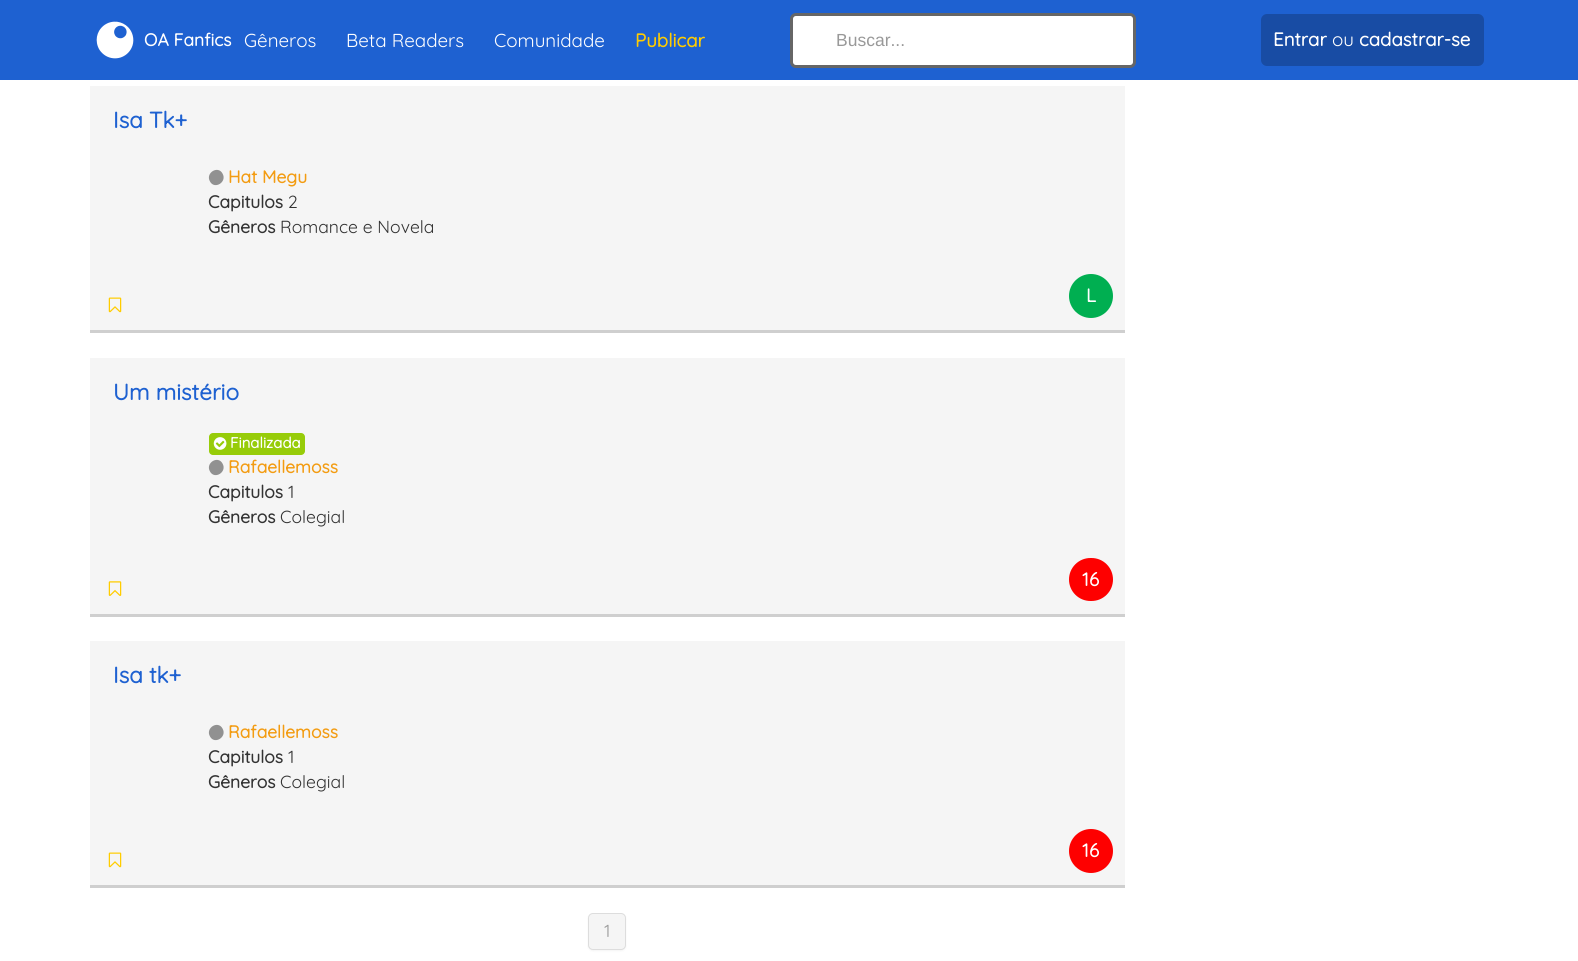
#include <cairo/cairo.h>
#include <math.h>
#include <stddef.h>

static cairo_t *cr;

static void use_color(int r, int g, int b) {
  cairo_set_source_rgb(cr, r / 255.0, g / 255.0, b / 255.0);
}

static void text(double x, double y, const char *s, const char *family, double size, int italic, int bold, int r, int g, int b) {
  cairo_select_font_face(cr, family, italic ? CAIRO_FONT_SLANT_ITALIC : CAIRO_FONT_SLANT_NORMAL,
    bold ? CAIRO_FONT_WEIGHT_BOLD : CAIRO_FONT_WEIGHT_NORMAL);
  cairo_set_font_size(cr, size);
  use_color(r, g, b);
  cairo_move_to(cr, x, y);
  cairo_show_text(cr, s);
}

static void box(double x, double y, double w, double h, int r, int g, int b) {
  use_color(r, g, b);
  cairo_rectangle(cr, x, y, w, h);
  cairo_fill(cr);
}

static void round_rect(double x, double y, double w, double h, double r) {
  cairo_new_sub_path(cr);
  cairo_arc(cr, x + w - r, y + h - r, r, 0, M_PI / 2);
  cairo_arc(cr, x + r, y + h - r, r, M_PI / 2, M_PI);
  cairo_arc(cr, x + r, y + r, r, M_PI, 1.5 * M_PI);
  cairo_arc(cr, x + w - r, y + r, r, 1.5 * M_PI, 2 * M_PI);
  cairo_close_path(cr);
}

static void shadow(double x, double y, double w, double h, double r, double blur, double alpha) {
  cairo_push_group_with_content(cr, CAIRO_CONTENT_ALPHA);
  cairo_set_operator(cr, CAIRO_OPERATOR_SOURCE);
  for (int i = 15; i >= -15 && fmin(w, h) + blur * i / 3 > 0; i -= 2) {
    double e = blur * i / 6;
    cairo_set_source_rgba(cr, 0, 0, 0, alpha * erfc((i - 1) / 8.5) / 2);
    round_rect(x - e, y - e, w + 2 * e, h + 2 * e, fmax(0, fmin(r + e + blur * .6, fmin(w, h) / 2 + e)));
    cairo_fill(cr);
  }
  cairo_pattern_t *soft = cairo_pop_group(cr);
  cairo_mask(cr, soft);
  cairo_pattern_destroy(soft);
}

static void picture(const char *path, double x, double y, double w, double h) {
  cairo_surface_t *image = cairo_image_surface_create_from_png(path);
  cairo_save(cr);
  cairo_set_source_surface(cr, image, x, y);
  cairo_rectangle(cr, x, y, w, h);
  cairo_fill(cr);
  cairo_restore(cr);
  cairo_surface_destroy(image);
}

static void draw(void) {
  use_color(255, 255, 255);
  cairo_paint(cr);
  box(0, 0, 1578, 80, 30, 97, 209);
  picture("img_01.png", 96, 21, 38, 38);
  use_color(255, 255, 255);
  round_rect(791.5, 14.5, 343, 52, 4.5);
  cairo_fill_preserve(cr);
  use_color(102, 102, 102);
  cairo_set_line_width(cr, 3);
  cairo_stroke(cr);
  use_color(24, 76, 164);
  round_rect(1261, 14, 223, 52, 6);
  cairo_fill(cr);
  box(90, 86, 1035, 244, 245, 245, 245);
  box(90, 330, 1035, 3, 207, 207, 207);
  use_color(145, 145, 145);
  cairo_new_path(cr);
  cairo_move_to(cr, 222.5, 173.5);
  cairo_curve_to(cr, 227.5, 182, 214.5, 190, 210, 181.5);
  cairo_curve_to(cr, 205, 173, 218, 165, 222.5, 173.5);
  cairo_close_path(cr);
  cairo_fill(cr);
  use_color(0, 175, 81);
  cairo_arc(cr, 1091, 296, 22, 0, 2 * M_PI);
  cairo_fill(cr);
  picture("img_02.png", 108, 297, 14, 16);
  box(90, 358, 1035, 256, 245, 245, 245);
  box(90, 614, 1035, 3, 207, 207, 207);
  use_color(151, 204, 9);
  round_rect(209, 433, 96, 22, 4);
  cairo_fill(cr);
  picture("img_03.png", 213, 437, 14, 13);
  use_color(145, 145, 145);
  cairo_new_path(cr);
  cairo_move_to(cr, 222.5, 463.5);
  cairo_curve_to(cr, 227.5, 472, 214.5, 480, 210, 471.5);
  cairo_curve_to(cr, 205, 463, 218, 455, 222.5, 463.5);
  cairo_close_path(cr);
  cairo_fill(cr);
  use_color(254, 0, 0);
  round_rect(1069, 558, 44, 43, 21.5);
  cairo_fill(cr);
  picture("img_04.png", 108, 581, 14, 15);
  box(90, 641, 1035, 244, 245, 245, 245);
  box(90, 885, 1035, 3, 207, 207, 207);
  use_color(145, 145, 145);
  cairo_new_path(cr);
  cairo_move_to(cr, 222.5, 728.5);
  cairo_curve_to(cr, 227.5, 737, 214.5, 745, 210, 736.5);
  cairo_curve_to(cr, 205, 728, 218, 720, 222.5, 728.5);
  cairo_close_path(cr);
  cairo_fill(cr);
  use_color(254, 0, 0);
  cairo_arc(cr, 1091, 851, 22, 0, 2 * M_PI);
  cairo_fill(cr);
  picture("img_02.png", 108, 852, 14, 16);
  use_color(0, 0, 0);
  shadow(588, 914, 38, 37, 5, 1, 0.05);
  use_color(245, 245, 245);
  round_rect(588.5, 913.5, 37, 36, 4.5);
  cairo_fill_preserve(cr);
  use_color(221, 221, 221);
  cairo_set_line_width(cr, 1);
  cairo_stroke(cr);
  text(144, 46, "OA Fanfics", "Quicksand", 17.5, 0, 1, 255, 255, 255);
  text(244, 47, "Gêneros", "Quicksand Light", 18.75, 0, 0, 255, 255, 255);
  text(346, 47, "Beta Readers", "Quicksand Light", 18.75, 0, 0, 255, 255, 255);
  text(494, 47, "Comunidade", "Quicksand Light", 18.75, 0, 0, 255, 255, 255);
  text(635, 47, "Publicar", "Quicksand", 18.75, 0, 1, 255, 204, 0);
  text(836, 46, "Buscar...", "Liberation Sans", 17.5, 0, 0, 153, 153, 153);
  text(1273, 46, "Entrar", "Quicksand", 18.75, 0, 1, 255, 255, 255);
  text(1332, 46, "ou", "Quicksand Light", 18.75, 0, 0, 255, 255, 255);
  text(1359, 46, "cadastrar-se", "Quicksand", 18.75, 0, 1, 255, 255, 255);
  text(113, 128, "Isa Tk+", "Quicksand", 22.5, 0, 1, 30, 97, 209);
  text(228, 183, "Hat Megu", "Quicksand", 17.5, 0, 1, 243, 156, 18);
  text(208, 208, "Capitulos", "Quicksand", 17.5, 0, 1, 51, 51, 51);
  text(288, 208, "2", "Quicksand Light", 17.5, 0, 0, 51, 51, 51);
  text(208, 233, "Gêneros", "Quicksand", 17.5, 0, 1, 51, 51, 51);
  text(280, 233, "Romance e Novela", "Quicksand Light", 17.5, 0, 0, 51, 51, 51);
  text(1086, 302, "L", "Quicksand", 18.75, 0, 1, 255, 255, 255);
  text(113, 400, "Um mistério", "Quicksand", 22.5, 0, 1, 30, 97, 209);
  text(230, 448, "Finalizada", "Quicksand", 15, 0, 1, 255, 255, 255);
  text(228, 473, "Rafaellemoss", "Quicksand", 17.5, 0, 1, 243, 156, 18);
  text(208, 498, "Capitulos", "Quicksand", 17.5, 0, 1, 51, 51, 51);
  text(288, 498, "1", "Quicksand Light", 17.5, 0, 0, 51, 51, 51);
  text(208, 523, "Gêneros", "Quicksand", 17.5, 0, 1, 51, 51, 51);
  text(280, 523, "Colegial", "Quicksand Light", 17.5, 0, 0, 51, 51, 51);
  text(1082, 586, "16", "Quicksand", 18.75, 0, 1, 255, 255, 255);
  text(113, 683, "Isa tk+", "Quicksand", 22.5, 0, 1, 30, 97, 209);
  text(228, 738, "Rafaellemoss", "Quicksand", 17.5, 0, 1, 243, 156, 18);
  text(208, 763, "Capitulos", "Quicksand", 17.5, 0, 1, 51, 51, 51);
  text(288, 763, "1", "Quicksand Light", 17.5, 0, 0, 51, 51, 51);
  text(208, 788, "Gêneros", "Quicksand", 17.5, 0, 1, 51, 51, 51);
  text(280, 788, "Colegial", "Quicksand Light", 17.5, 0, 0, 51, 51, 51);
  text(1082, 857, "16", "Quicksand", 18.75, 0, 1, 255, 255, 255);
  text(604, 937, "1", "Quicksand Light", 17.5, 0, 0, 153, 153, 153);
}

int main(void) {
  cairo_surface_t *surface = cairo_image_surface_create(CAIRO_FORMAT_RGB24, 1578, 961);
  cr = cairo_create(surface);
  cairo_font_options_t *options = cairo_font_options_create();
  cairo_font_options_set_hint_metrics(options, CAIRO_HINT_METRICS_OFF);
  cairo_font_options_set_hint_style(options, CAIRO_HINT_STYLE_NONE);
  cairo_set_font_options(cr, options);
  cairo_set_miter_limit(cr, 4);
  draw();
  cairo_surface_write_to_png(surface, "out.png");
  cairo_font_options_destroy(options);
  cairo_destroy(cr);
  cairo_surface_destroy(surface);
  return 0;
}
